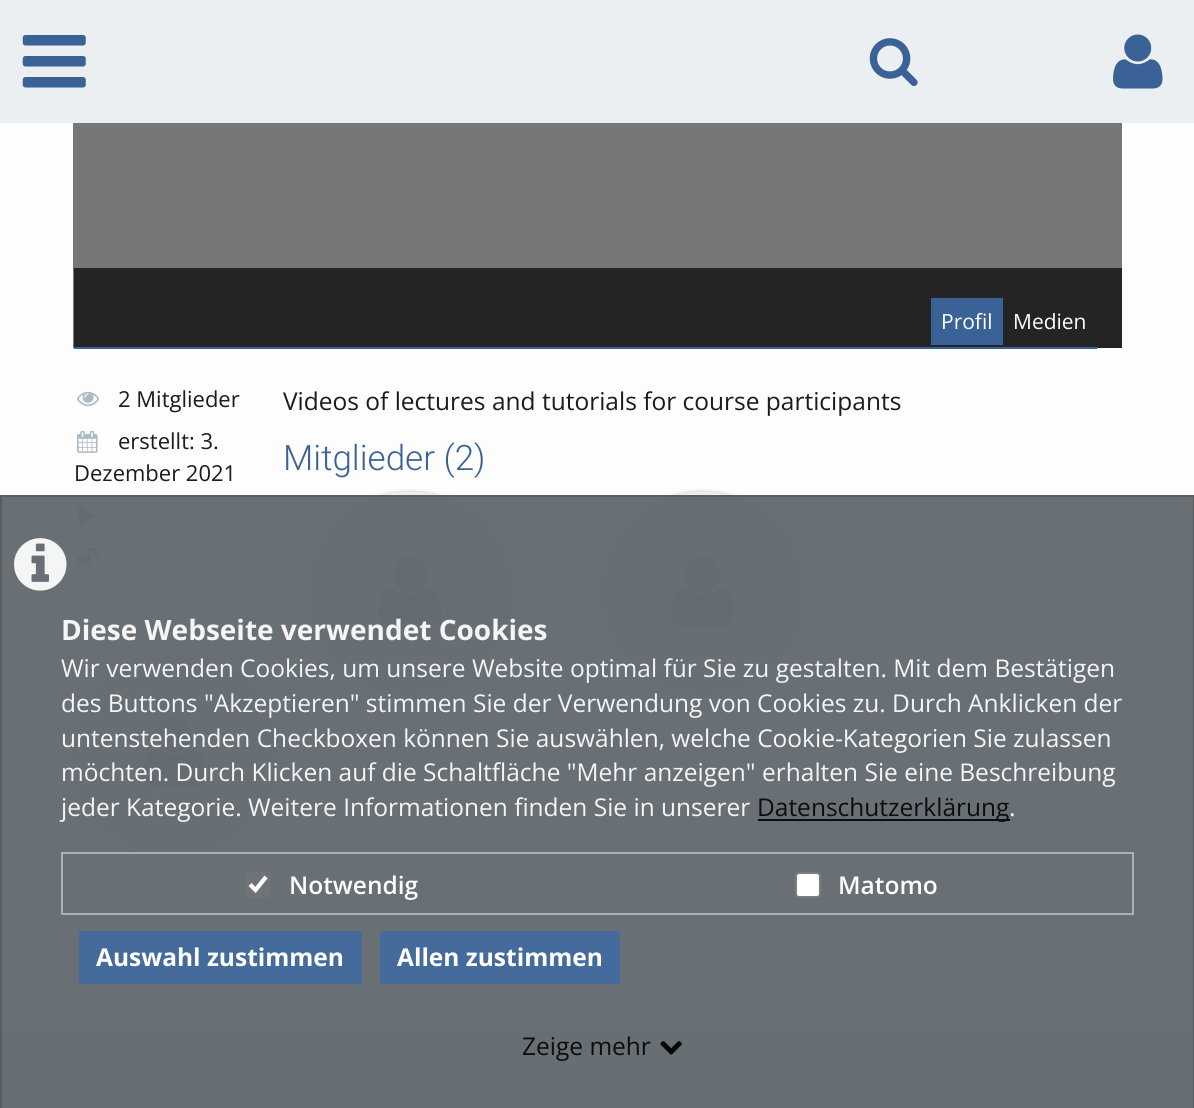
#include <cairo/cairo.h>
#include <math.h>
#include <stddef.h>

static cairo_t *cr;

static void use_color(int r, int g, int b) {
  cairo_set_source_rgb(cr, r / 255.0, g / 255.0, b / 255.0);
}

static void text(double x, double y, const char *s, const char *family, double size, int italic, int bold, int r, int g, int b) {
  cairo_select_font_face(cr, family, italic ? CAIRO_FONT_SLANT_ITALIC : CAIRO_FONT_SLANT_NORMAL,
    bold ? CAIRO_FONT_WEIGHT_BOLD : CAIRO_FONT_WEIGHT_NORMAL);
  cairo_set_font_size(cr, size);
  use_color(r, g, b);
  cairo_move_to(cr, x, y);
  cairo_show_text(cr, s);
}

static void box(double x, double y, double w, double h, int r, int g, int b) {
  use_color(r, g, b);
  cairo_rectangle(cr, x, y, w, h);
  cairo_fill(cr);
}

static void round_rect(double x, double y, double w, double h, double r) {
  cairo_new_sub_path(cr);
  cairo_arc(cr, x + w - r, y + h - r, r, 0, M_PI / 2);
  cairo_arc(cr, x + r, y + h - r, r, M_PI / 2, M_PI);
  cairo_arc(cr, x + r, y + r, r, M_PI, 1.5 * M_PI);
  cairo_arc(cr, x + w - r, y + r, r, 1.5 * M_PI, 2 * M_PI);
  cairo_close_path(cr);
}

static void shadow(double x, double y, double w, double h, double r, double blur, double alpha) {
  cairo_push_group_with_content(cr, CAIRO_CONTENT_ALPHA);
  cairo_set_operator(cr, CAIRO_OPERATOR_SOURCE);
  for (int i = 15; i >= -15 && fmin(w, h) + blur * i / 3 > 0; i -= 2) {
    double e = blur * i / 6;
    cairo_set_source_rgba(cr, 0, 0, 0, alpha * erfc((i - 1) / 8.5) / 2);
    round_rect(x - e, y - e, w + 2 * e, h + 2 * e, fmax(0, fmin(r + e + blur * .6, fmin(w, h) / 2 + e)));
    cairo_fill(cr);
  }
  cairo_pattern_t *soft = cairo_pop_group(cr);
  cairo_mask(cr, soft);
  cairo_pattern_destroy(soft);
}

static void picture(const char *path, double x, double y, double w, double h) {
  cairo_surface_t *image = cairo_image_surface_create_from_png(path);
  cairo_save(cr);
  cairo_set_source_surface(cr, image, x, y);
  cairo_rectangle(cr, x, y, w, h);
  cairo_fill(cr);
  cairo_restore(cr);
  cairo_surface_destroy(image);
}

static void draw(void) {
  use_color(253, 253, 253);
  cairo_paint(cr);
  box(0, 0, 1194, 123, 236, 239, 242);
  picture("img_01.png", 22, 35, 64, 53);
  picture("img_02.png", 869, 38, 49, 49);
  picture("img_03.png", 1113, 34, 50, 55);
  box(73, 123, 1049, 225, 119, 119, 119);
  box(74, 268, 1048, 80, 36, 36, 36);
  box(74, 347, 1023, 2, 59, 98, 151);
  box(931, 298, 72, 47, 59, 98, 151);
  picture("img_04.png", 77, 391, 22, 15);
  picture("img_05.png", 77, 430, 21, 23);
  picture("img_06.png", 78, 505, 18, 20);
  picture("img_07.png", 77, 548, 21, 18);
  use_color(172, 187, 195);
  shadow(74, 653, 201, 201, 100.5, 2, 1);
  picture("img_08.png", 74, 653, 200, 201);
  shadow(310, 492, 201, 201, 100.5, 2, 1);
  picture("img_09.png", 310, 492, 201, 201);
  shadow(602, 492, 201, 201, 100.5, 2, 1);
  picture("img_10.png", 602, 492, 201, 201);
  box(2, 1031, 1191, 77, 236, 239, 242);
  box(0, 1029, 1194, 2, 223, 229, 235);
  cairo_set_source_rgba(cr, 0.38, 0.408, 0.435, 0.95);
  cairo_rectangle(cr, 1, 496, 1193, 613);
  cairo_fill_preserve(cr);
  use_color(93, 93, 93);
  cairo_stroke(cr);
  picture("img_11.png", 14, 538, 53, 53);
  box(758, 819, 252, 2, 13, 13, 13);
  cairo_rectangle(cr, 62, 853, 1071, 61);
  cairo_set_source_rgba(cr, 0.69, 0.702, 0.722, 0.95);
  cairo_stroke(cr);
  use_color(111, 115, 120);
  round_rect(245, 872, 26, 26, 4);
  cairo_fill(cr);
  cairo_new_path(cr);
  cairo_move_to(cr, 250, 884.5);
  cairo_line_to(cr, 255.5, 890);
  cairo_line_to(cr, 266, 877);
  use_color(255, 255, 255);
  cairo_set_line_width(cr, 4.2);
  cairo_stroke(cr);
  round_rect(796, 873, 24, 24, 3);
  cairo_fill_preserve(cr);
  use_color(125, 125, 125);
  cairo_set_line_width(cr, 2);
  cairo_stroke(cr);
  box(79, 931, 283, 53, 69, 106, 156);
  box(380, 931, 240, 53, 69, 106, 156);
  picture("img_12.png", 660, 1041, 22, 14);
  text(941, 329, "Profil", "Open Sans", 21, 0, 0, 255, 255, 255);
  text(1013, 329, "Medien", "Open Sans", 21, 0, 0, 255, 255, 255);
  text(118, 407, "2 Mitglieder", "Open Sans", 22, 0, 0, 26, 28, 30);
  text(118, 449, "erstellt: 3.", "Open Sans", 22, 0, 0, 26, 28, 30);
  text(74, 481, "Dezember 2021", "Open Sans", 22, 0, 0, 26, 28, 30);
  text(283, 410, "Videos of lectures and tutorials for course participants", "Open Sans", 24.5, 0, 0, 26, 28, 30);
  text(283, 470, "Mitglieder (2)", "Roboto Light", 35, 0, 0, 59, 98, 151);
  text(61, 640, "Diese Webseite verwendet Cookies", "Open Sans", 28, 0, 1, 245, 245, 245);
  text(61, 677, "Wir verwenden Cookies, um unsere Website optimal für Sie zu gestalten. Mit dem Bestätigen", "Open Sans", 24.5, 0, 0, 245, 245, 245);
  text(61, 712, "des Buttons \"Akzeptieren\" stimmen Sie der Verwendung von Cookies zu. Durch Anklicken der", "Open Sans", 24.5, 0, 0, 245, 245, 245);
  text(61, 747, "untenstehenden Checkboxen können Sie auswählen, welche Cookie-Kategorien Sie zulassen", "Open Sans", 24.5, 0, 0, 245, 245, 245);
  text(61, 781, "möchten. Durch Klicken auf die Schaltfläche \"Mehr anzeigen\" erhalten Sie eine Beschreibung", "Open Sans", 24.5, 0, 0, 245, 245, 245);
  text(61, 816, "jeder Kategorie. Weitere Informationen finden Sie in unserer", "Open Sans", 24.5, 0, 0, 245, 245, 245);
  text(757, 816, "Datenschutzerklärung", "Open Sans", 24.5, 0, 0, 13, 13, 13);
  text(1009, 816, ".", "Open Sans", 24.5, 0, 0, 255, 255, 255);
  text(289, 894, "Notwendig", "Open Sans SemiBold", 24.5, 0, 0, 255, 255, 255);
  text(838, 894, "Matomo", "Open Sans SemiBold", 24.5, 0, 0, 255, 255, 255);
  text(96, 966, "Auswahl zustimmen", "Open Sans", 24.5, 0, 1, 255, 255, 255);
  text(397, 966, "Allen zustimmen", "Open Sans", 24.5, 0, 1, 255, 255, 255);
  text(522, 1055, "Zeige mehr", "Open Sans", 24.5, 0, 0, 13, 13, 13);
}

int main(void) {
  cairo_surface_t *surface = cairo_image_surface_create(CAIRO_FORMAT_RGB24, 1194, 1108);
  cr = cairo_create(surface);
  cairo_font_options_t *options = cairo_font_options_create();
  cairo_font_options_set_hint_metrics(options, CAIRO_HINT_METRICS_OFF);
  cairo_font_options_set_hint_style(options, CAIRO_HINT_STYLE_NONE);
  cairo_set_font_options(cr, options);
  cairo_set_miter_limit(cr, 4);
  draw();
  cairo_surface_write_to_png(surface, "out.png");
  cairo_font_options_destroy(options);
  cairo_destroy(cr);
  cairo_surface_destroy(surface);
  return 0;
}
